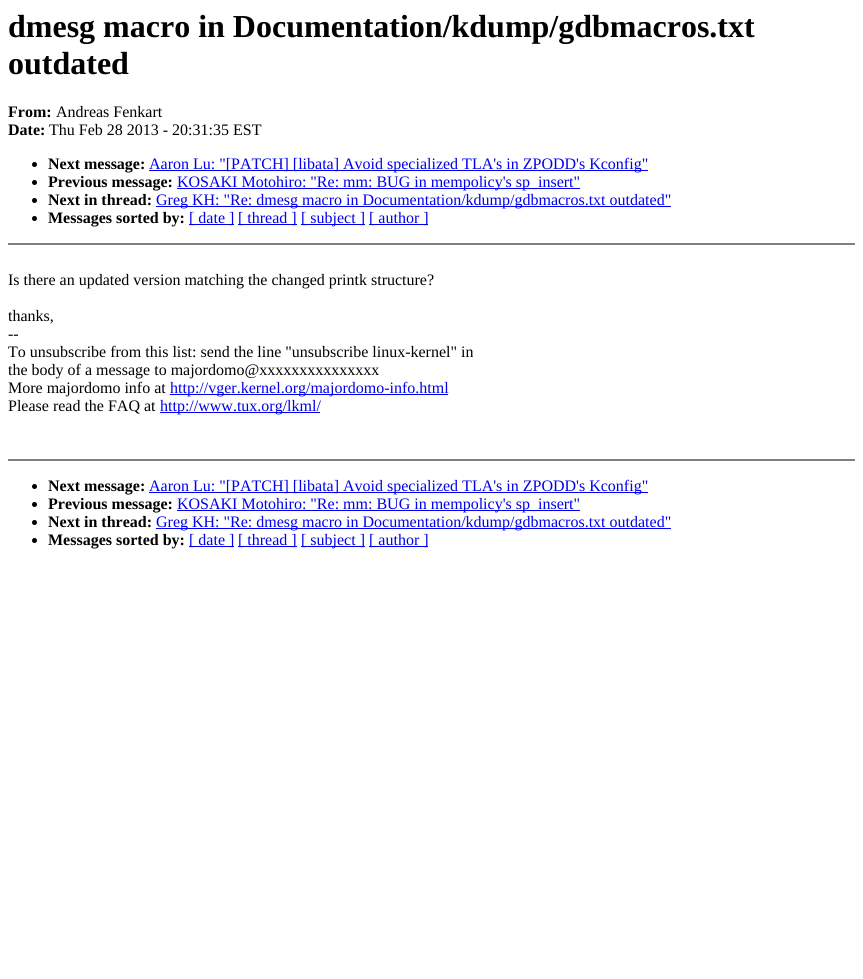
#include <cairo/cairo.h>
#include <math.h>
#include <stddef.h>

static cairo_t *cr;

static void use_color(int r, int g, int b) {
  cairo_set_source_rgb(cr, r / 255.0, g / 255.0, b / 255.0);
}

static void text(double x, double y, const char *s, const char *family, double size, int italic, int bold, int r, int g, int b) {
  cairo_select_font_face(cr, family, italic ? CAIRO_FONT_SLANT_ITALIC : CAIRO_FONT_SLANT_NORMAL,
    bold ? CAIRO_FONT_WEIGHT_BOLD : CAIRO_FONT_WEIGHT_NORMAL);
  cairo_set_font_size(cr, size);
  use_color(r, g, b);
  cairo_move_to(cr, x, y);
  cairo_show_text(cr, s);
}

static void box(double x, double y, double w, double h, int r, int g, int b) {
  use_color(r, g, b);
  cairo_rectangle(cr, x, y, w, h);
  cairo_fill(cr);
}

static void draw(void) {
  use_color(255, 255, 255);
  cairo_paint(cr);
  use_color(0, 0, 0);
  cairo_arc(cr, 34.5, 164.5, 2.5, 0, 2 * M_PI);
  cairo_fill(cr);
  box(149, 170, 499, 1, 0, 0, 238);
  use_color(0, 0, 0);
  cairo_arc(cr, 34.5, 182.5, 2.5, 0, 2 * M_PI);
  cairo_fill(cr);
  box(177, 188, 403, 1, 0, 0, 238);
  use_color(0, 0, 0);
  cairo_arc(cr, 34.5, 200.5, 2.5, 0, 2 * M_PI);
  cairo_fill(cr);
  box(156, 206, 515, 1, 0, 0, 238);
  use_color(0, 0, 0);
  cairo_arc(cr, 34.5, 218.5, 2.5, 0, 2 * M_PI);
  cairo_fill(cr);
  box(189, 224, 45, 1, 0, 0, 238);
  box(238, 224, 59, 1, 0, 0, 238);
  box(301, 224, 64, 1, 0, 0, 238);
  box(369, 224, 59, 1, 0, 0, 238);
  box(8, 243, 847, 2, 128, 128, 128);
  box(170, 394, 278, 1, 0, 0, 238);
  box(160, 412, 160, 1, 0, 0, 238);
  box(8, 459, 847, 2, 128, 128, 128);
  use_color(0, 0, 0);
  cairo_arc(cr, 34.5, 486.5, 2.5, 0, 2 * M_PI);
  cairo_fill(cr);
  box(149, 492, 499, 1, 0, 0, 238);
  use_color(0, 0, 0);
  cairo_arc(cr, 34.5, 504.5, 2.5, 0, 2 * M_PI);
  cairo_fill(cr);
  box(177, 510, 403, 1, 0, 0, 238);
  use_color(0, 0, 0);
  cairo_arc(cr, 34.5, 522.5, 2.5, 0, 2 * M_PI);
  cairo_fill(cr);
  box(156, 528, 515, 1, 0, 0, 238);
  use_color(0, 0, 0);
  cairo_arc(cr, 34.5, 540.5, 2.5, 0, 2 * M_PI);
  cairo_fill(cr);
  box(189, 546, 45, 1, 0, 0, 238);
  box(238, 546, 59, 1, 0, 0, 238);
  box(301, 546, 64, 1, 0, 0, 238);
  box(369, 546, 59, 1, 0, 0, 238);
  text(8, 37, "dmesg macro in Documentation/kdump/gdbmacros.txt", "Liberation Serif", 32, 0, 1, 0, 0, 0);
  text(8, 74, "outdated", "Liberation Serif", 32, 0, 1, 0, 0, 0);
  text(8, 117, "From:", "Liberation Serif", 16, 0, 1, 0, 0, 0);
  text(56, 117, "Andreas Fenkart", "Liberation Serif", 16, 0, 0, 0, 0, 0);
  text(8, 135, "Date:", "Liberation Serif", 16, 0, 1, 0, 0, 0);
  text(49, 135, "Thu Feb 28 2013 - 20:31:35 EST", "Liberation Serif", 16, 0, 0, 0, 0, 0);
  text(48, 169, "Next message:", "Liberation Serif", 16, 0, 1, 0, 0, 0);
  text(149, 169, "Aaron Lu: \"[PATCH] [libata] Avoid specialized TLA's in ZPODD's Kconfig\"", "Liberation Serif", 16, 0, 0, 0, 0, 238);
  text(48, 187, "Previous message:", "Liberation Serif", 16, 0, 1, 0, 0, 0);
  text(177, 187, "KOSAKI Motohiro: \"Re: mm: BUG in mempolicy's sp_insert\"", "Liberation Serif", 16, 0, 0, 0, 0, 238);
  text(48, 205, "Next in thread:", "Liberation Serif", 16, 0, 1, 0, 0, 0);
  text(156, 205, "Greg KH: \"Re: dmesg macro in Documentation/kdump/gdbmacros.txt outdated\"", "Liberation Serif", 16, 0, 0, 0, 0, 238);
  text(48, 223, "Messages sorted by:", "Liberation Serif", 16, 0, 1, 0, 0, 0);
  text(189, 223, "[ date ]", "Liberation Serif", 16, 0, 0, 0, 0, 238);
  text(238, 223, "[ thread ]", "Liberation Serif", 16, 0, 0, 0, 0, 238);
  text(301, 223, "[ subject ]", "Liberation Serif", 16, 0, 0, 0, 0, 238);
  text(369, 223, "[ author ]", "Liberation Serif", 16, 0, 0, 0, 0, 238);
  text(8, 285, "Is there an updated version matching the changed printk structure?", "Liberation Serif", 16, 0, 0, 0, 0, 0);
  text(8, 321, "thanks,", "Liberation Serif", 16, 0, 0, 0, 0, 0);
  text(8, 339, "--", "Liberation Serif", 16, 0, 0, 0, 0, 0);
  text(8, 357, "To unsubscribe from this list: send the line \"unsubscribe linux-kernel\" in", "Liberation Serif", 16, 0, 0, 0, 0, 0);
  text(8, 375, "the body of a message to majordomo@xxxxxxxxxxxxxxx", "Liberation Serif", 16, 0, 0, 0, 0, 0);
  text(8, 393, "More majordomo info at", "Liberation Serif", 16, 0, 0, 0, 0, 0);
  text(170, 393, "http://vger.kernel.org/majordomo-info.html", "Liberation Serif", 16, 0, 0, 0, 0, 238);
  text(8, 411, "Please read the FAQ at", "Liberation Serif", 16, 0, 0, 0, 0, 0);
  text(160, 411, "http://www.tux.org/lkml/", "Liberation Serif", 16, 0, 0, 0, 0, 238);
  text(48, 491, "Next message:", "Liberation Serif", 16, 0, 1, 0, 0, 0);
  text(149, 491, "Aaron Lu: \"[PATCH] [libata] Avoid specialized TLA's in ZPODD's Kconfig\"", "Liberation Serif", 16, 0, 0, 0, 0, 238);
  text(48, 509, "Previous message:", "Liberation Serif", 16, 0, 1, 0, 0, 0);
  text(177, 509, "KOSAKI Motohiro: \"Re: mm: BUG in mempolicy's sp_insert\"", "Liberation Serif", 16, 0, 0, 0, 0, 238);
  text(48, 527, "Next in thread:", "Liberation Serif", 16, 0, 1, 0, 0, 0);
  text(156, 527, "Greg KH: \"Re: dmesg macro in Documentation/kdump/gdbmacros.txt outdated\"", "Liberation Serif", 16, 0, 0, 0, 0, 238);
  text(48, 545, "Messages sorted by:", "Liberation Serif", 16, 0, 1, 0, 0, 0);
  text(189, 545, "[ date ]", "Liberation Serif", 16, 0, 0, 0, 0, 238);
  text(238, 545, "[ thread ]", "Liberation Serif", 16, 0, 0, 0, 0, 238);
  text(301, 545, "[ subject ]", "Liberation Serif", 16, 0, 0, 0, 0, 238);
  text(369, 545, "[ author ]", "Liberation Serif", 16, 0, 0, 0, 0, 238);
}

int main(void) {
  cairo_surface_t *surface = cairo_image_surface_create(CAIRO_FORMAT_RGB24, 863, 979);
  cr = cairo_create(surface);
  cairo_font_options_t *options = cairo_font_options_create();
  cairo_font_options_set_hint_metrics(options, CAIRO_HINT_METRICS_OFF);
  cairo_font_options_set_hint_style(options, CAIRO_HINT_STYLE_NONE);
  cairo_set_font_options(cr, options);
  cairo_set_miter_limit(cr, 4);
  draw();
  cairo_surface_write_to_png(surface, "out.png");
  cairo_font_options_destroy(options);
  cairo_destroy(cr);
  cairo_surface_destroy(surface);
  return 0;
}
